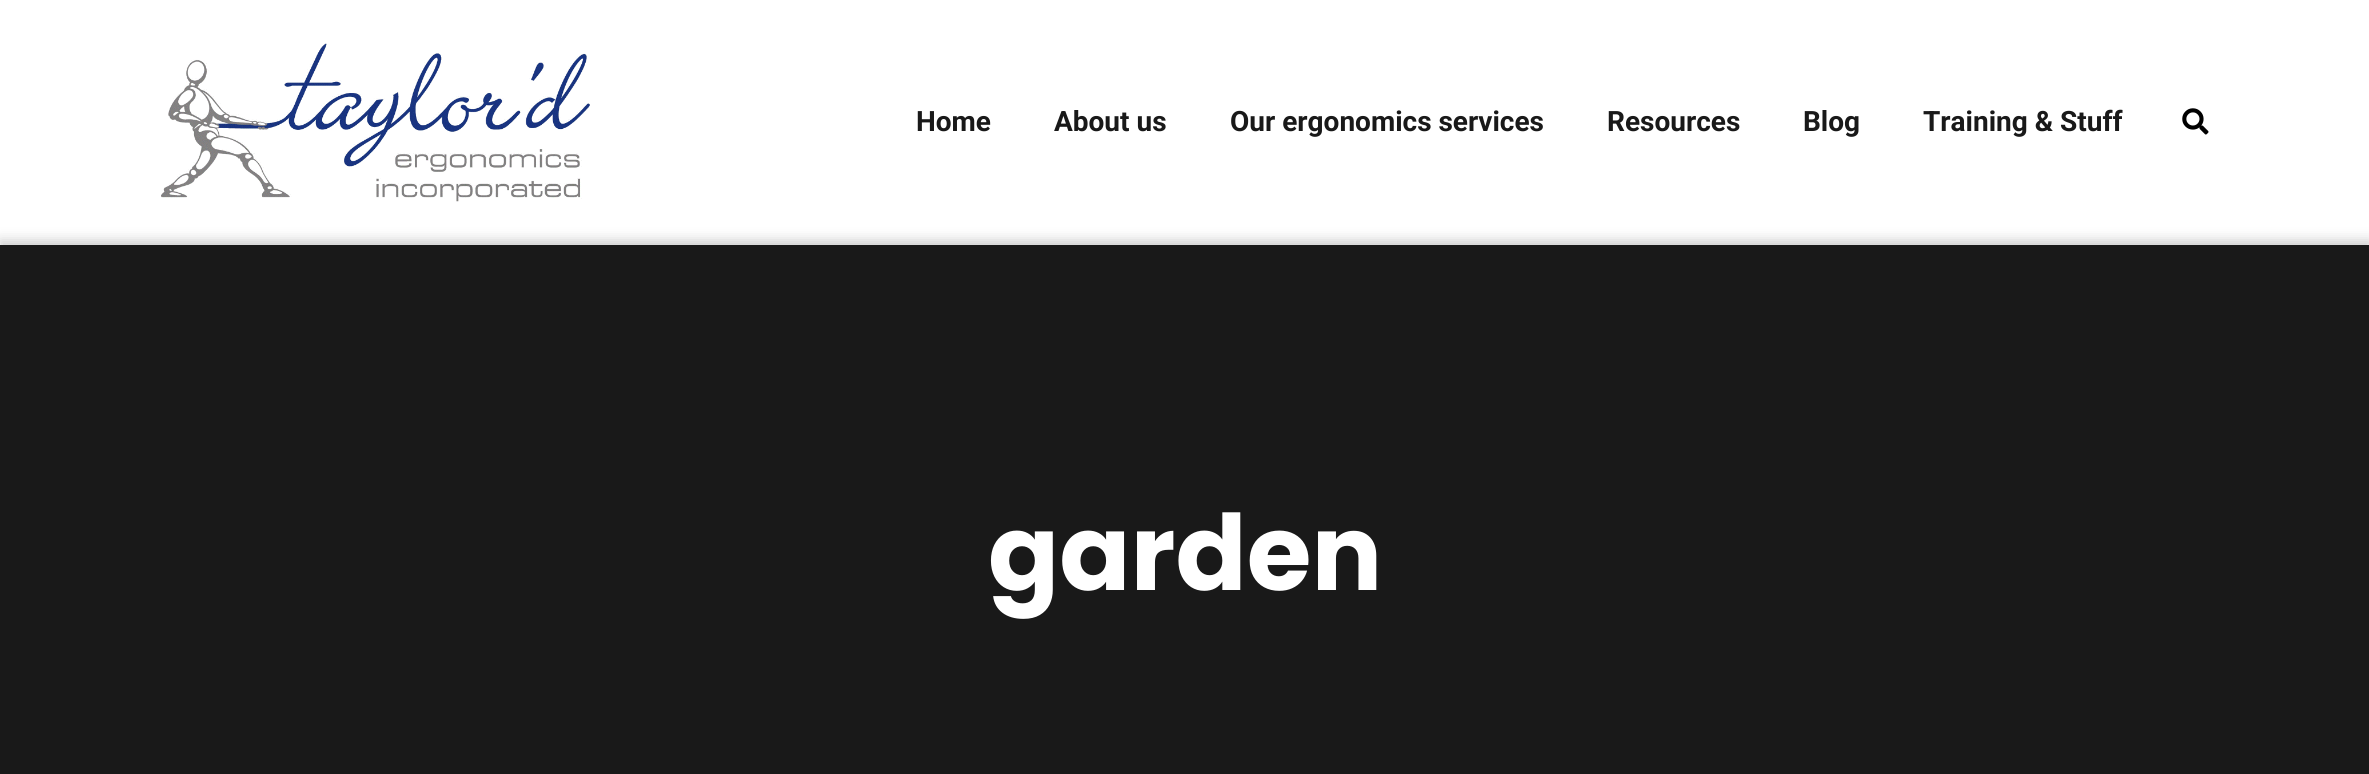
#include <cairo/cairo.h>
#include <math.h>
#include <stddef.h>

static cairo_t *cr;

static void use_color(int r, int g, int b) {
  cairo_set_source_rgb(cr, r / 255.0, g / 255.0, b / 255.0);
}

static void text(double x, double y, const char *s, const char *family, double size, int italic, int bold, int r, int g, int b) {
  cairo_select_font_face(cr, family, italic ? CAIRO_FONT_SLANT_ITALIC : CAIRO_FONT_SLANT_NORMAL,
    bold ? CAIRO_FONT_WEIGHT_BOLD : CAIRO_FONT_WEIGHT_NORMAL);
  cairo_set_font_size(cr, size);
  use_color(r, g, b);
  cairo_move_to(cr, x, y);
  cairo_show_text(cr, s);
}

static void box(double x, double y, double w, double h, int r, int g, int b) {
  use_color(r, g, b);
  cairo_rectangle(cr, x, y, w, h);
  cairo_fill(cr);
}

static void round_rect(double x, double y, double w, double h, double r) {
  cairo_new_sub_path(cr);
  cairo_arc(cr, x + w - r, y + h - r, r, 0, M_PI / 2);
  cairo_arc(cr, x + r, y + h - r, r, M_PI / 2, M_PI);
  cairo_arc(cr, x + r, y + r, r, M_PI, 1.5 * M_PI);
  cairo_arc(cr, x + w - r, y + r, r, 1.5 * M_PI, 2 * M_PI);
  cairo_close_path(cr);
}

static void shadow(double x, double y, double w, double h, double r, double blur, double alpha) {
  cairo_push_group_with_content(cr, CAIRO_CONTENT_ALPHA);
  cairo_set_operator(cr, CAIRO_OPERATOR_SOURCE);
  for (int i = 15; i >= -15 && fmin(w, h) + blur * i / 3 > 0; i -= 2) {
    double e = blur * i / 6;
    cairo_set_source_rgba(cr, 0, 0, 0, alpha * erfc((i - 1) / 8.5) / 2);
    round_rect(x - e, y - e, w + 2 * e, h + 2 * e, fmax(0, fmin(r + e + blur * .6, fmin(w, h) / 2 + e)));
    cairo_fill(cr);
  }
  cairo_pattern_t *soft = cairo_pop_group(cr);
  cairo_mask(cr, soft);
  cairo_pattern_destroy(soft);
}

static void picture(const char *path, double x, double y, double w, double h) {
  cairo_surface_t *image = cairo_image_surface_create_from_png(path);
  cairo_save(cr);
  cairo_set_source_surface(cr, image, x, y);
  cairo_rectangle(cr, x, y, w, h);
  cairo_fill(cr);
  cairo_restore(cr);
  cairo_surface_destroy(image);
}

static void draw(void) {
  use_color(255, 255, 255);
  cairo_paint(cr);
  picture("img_01.png", 161, 43, 429, 159);
  picture("img_02.png", 2182, 108, 27, 27);
  use_color(12, 12, 12);
  shadow(0, 240, 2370, 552, 0, 6, 0.2);
  box(0, 245, 2369, 529, 25, 25, 25);
  text(916, 131, "Home", "Roboto", 28, 0, 1, 25, 25, 25);
  text(1054, 131, "About us", "Roboto", 28, 0, 1, 25, 25, 25);
  text(1230, 131, "Our ergonomics services", "Roboto", 28, 0, 1, 25, 25, 25);
  text(1607, 131, "Resources", "Roboto", 28, 0, 1, 25, 25, 25);
  text(1803, 131, "Blog", "Roboto", 28, 0, 1, 25, 25, 25);
  text(1923, 131, "Training & Stuff", "Roboto", 28, 0, 1, 25, 25, 25);
  text(988, 590, "garden", "Poppins", 105, 0, 1, 255, 255, 255);
}

int main(void) {
  cairo_surface_t *surface = cairo_image_surface_create(CAIRO_FORMAT_RGB24, 2369, 774);
  cr = cairo_create(surface);
  cairo_font_options_t *options = cairo_font_options_create();
  cairo_font_options_set_hint_metrics(options, CAIRO_HINT_METRICS_OFF);
  cairo_font_options_set_hint_style(options, CAIRO_HINT_STYLE_NONE);
  cairo_set_font_options(cr, options);
  cairo_set_miter_limit(cr, 4);
  draw();
  cairo_surface_write_to_png(surface, "out.png");
  cairo_font_options_destroy(options);
  cairo_destroy(cr);
  cairo_surface_destroy(surface);
  return 0;
}
